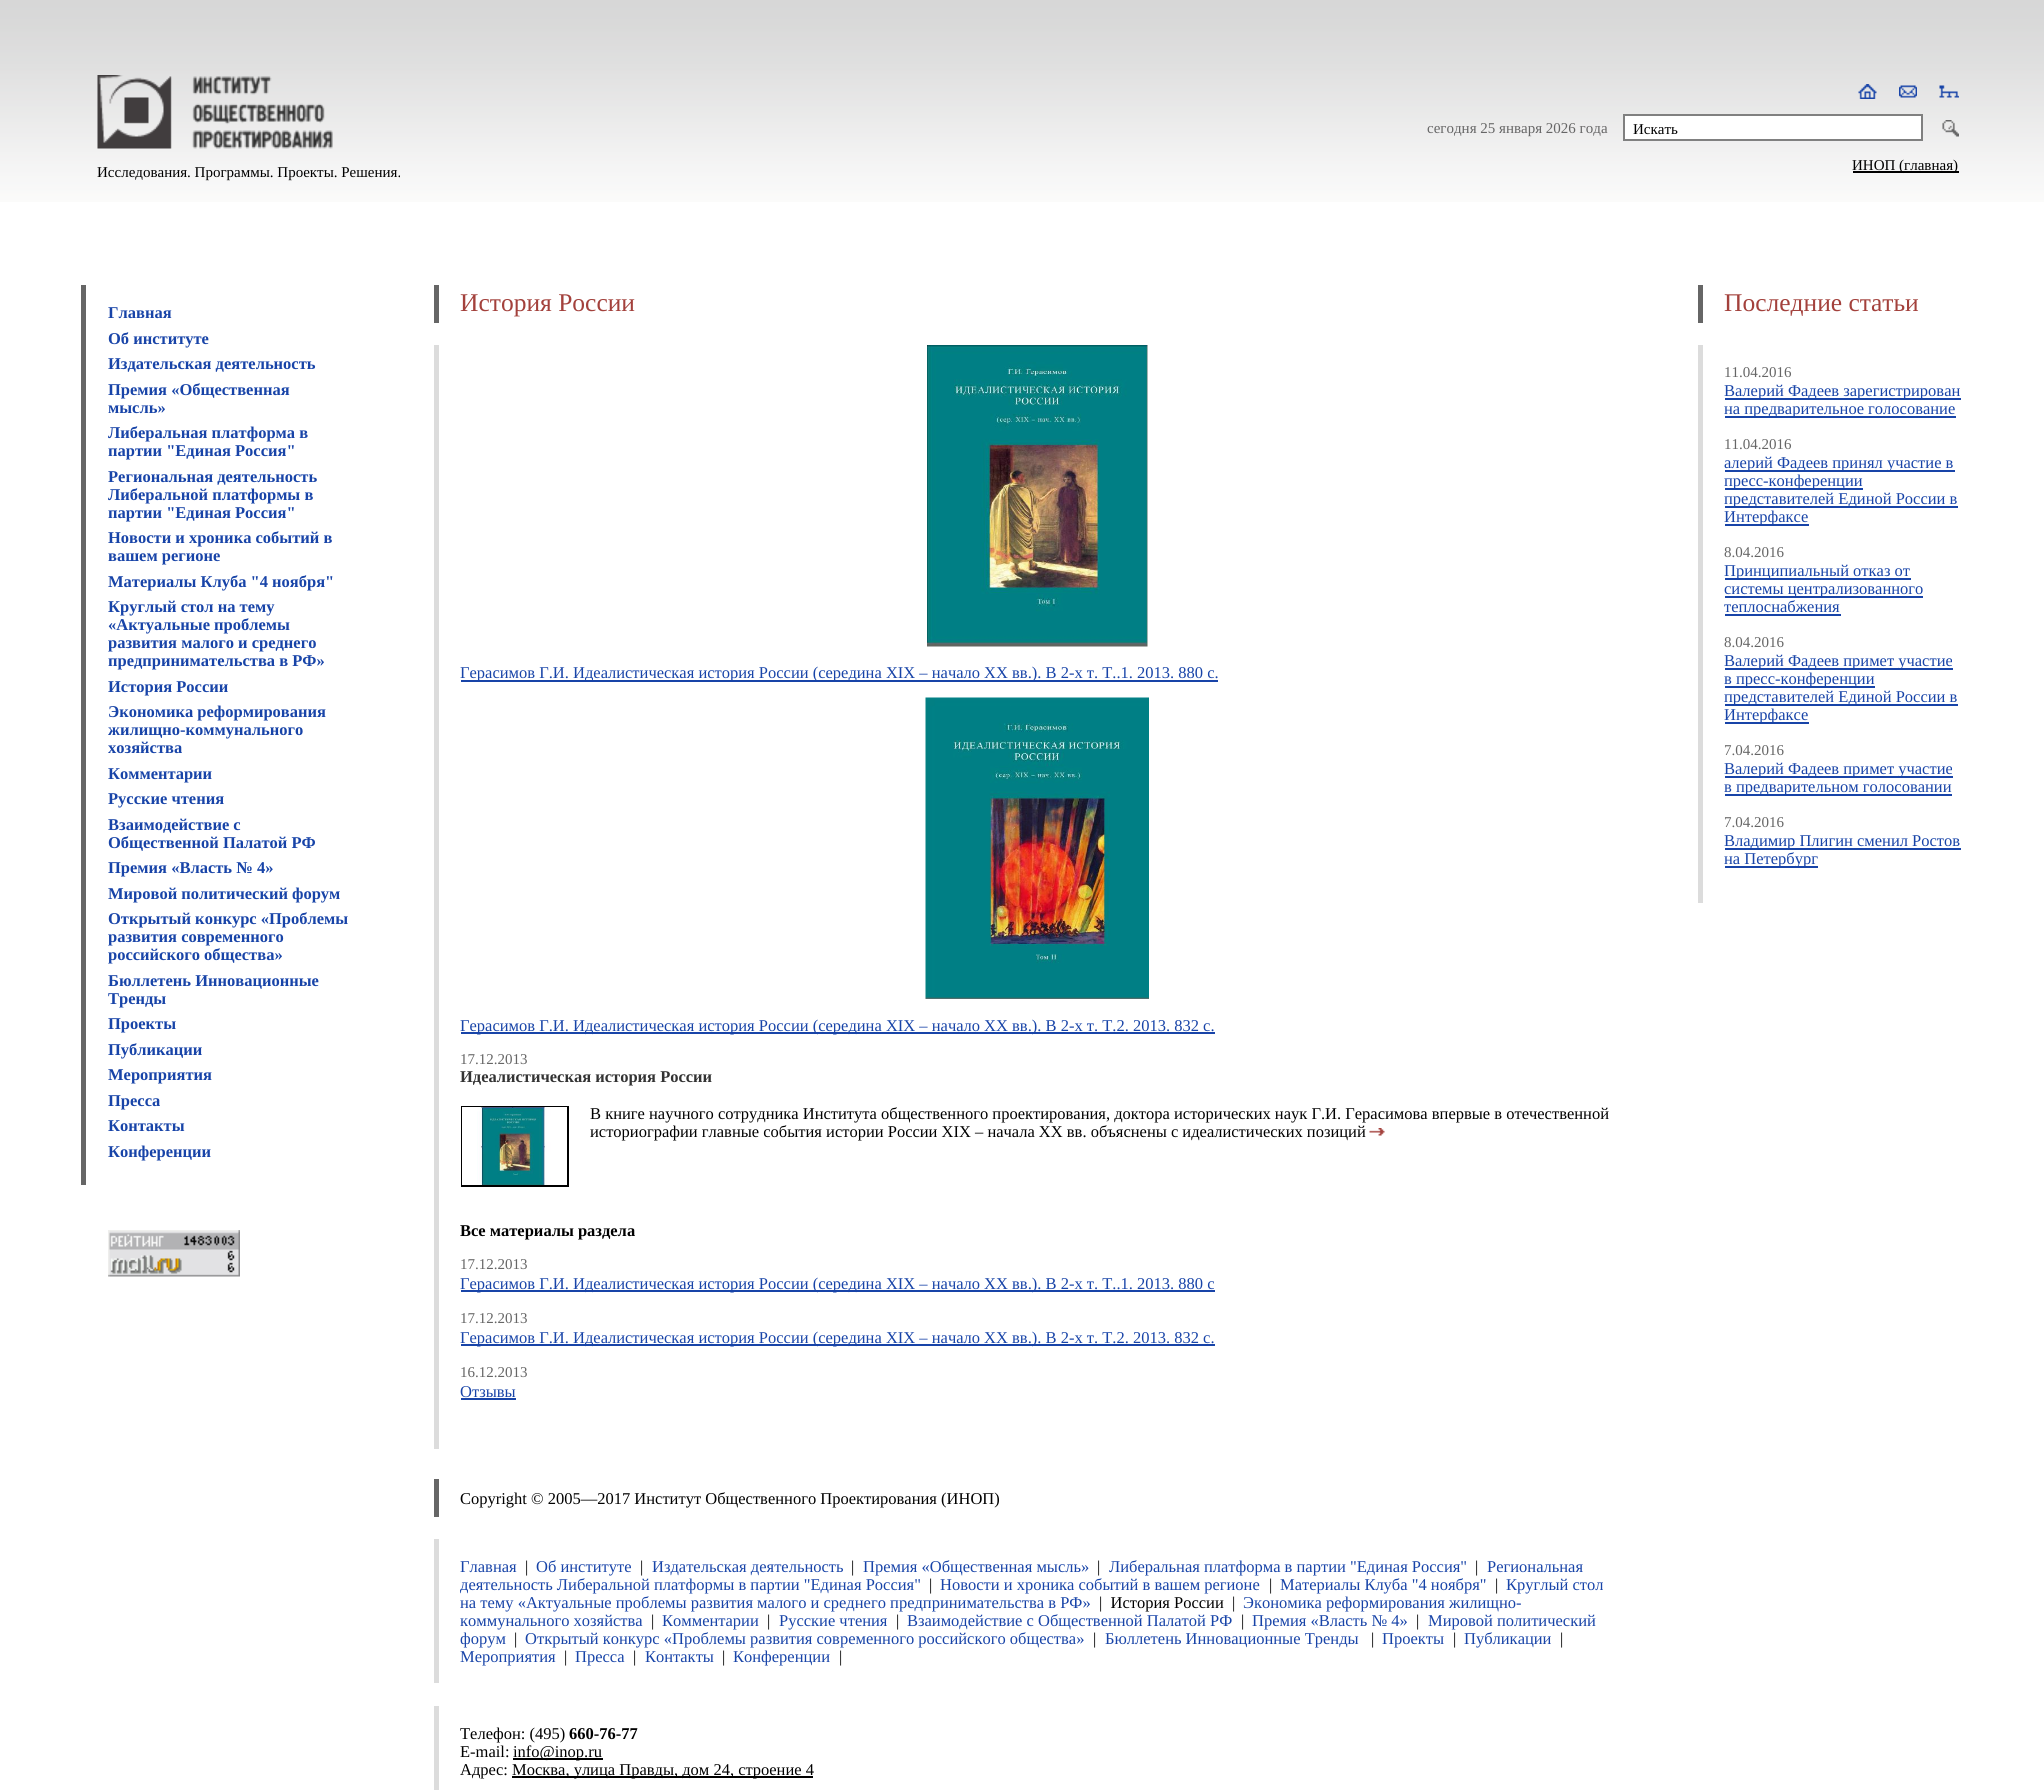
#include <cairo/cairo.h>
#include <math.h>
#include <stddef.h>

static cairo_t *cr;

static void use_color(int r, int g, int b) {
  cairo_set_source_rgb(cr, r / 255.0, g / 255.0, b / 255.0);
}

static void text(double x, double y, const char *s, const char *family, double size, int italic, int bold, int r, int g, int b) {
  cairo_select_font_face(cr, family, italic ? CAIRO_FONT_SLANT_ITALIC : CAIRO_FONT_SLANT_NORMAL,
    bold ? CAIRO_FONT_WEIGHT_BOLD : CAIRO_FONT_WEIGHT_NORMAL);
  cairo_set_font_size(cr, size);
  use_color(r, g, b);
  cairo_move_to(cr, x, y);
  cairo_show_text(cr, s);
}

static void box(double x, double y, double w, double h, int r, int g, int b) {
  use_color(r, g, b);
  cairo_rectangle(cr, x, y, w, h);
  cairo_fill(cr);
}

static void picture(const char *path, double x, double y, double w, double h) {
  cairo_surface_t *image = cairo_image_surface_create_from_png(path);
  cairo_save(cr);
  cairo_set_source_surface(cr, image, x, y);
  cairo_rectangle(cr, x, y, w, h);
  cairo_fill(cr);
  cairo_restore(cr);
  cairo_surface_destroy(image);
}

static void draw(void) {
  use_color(255, 255, 255);
  cairo_paint(cr);
  picture("img_01.png", 0, 0, 2044, 202);
  picture("img_02.png", 97, 75, 236, 74);
  picture("img_03.png", 1858, 84, 19, 15);
  picture("img_04.png", 1899, 85, 18, 13);
  picture("img_05.png", 1939, 85, 20, 13);
  use_color(255, 255, 255);
  cairo_rectangle(cr, 1624, 115, 298, 25);
  cairo_fill_preserve(cr);
  use_color(128, 128, 128);
  cairo_stroke(cr);
  picture("img_06.png", 1942, 120, 17, 17);
  box(1853, 171, 106, 2, 0, 0, 0);
  box(81, 285, 5, 900, 102, 102, 102);
  picture("img_07.png", 108, 1230, 132, 47);
  box(434, 285, 5, 38, 102, 102, 102);
  box(434, 345, 5, 1104, 220, 220, 220);
  picture("img_08.png", 927, 345, 221, 302);
  box(461, 680, 757, 2, 24, 68, 168);
  picture("img_09.png", 925, 697, 224, 302);
  box(461, 1032, 754, 2, 24, 68, 168);
  cairo_rectangle(cr, 462, 1107, 106, 79);
  use_color(0, 0, 0);
  cairo_stroke(cr);
  picture("img_10.png", 462, 1107, 105, 78);
  picture("img_11.png", 1369, 1128, 16, 8);
  box(461, 1290, 754, 2, 24, 68, 168);
  box(461, 1344, 754, 2, 24, 68, 168);
  box(461, 1398, 55, 2, 24, 68, 168);
  box(1698, 285, 5, 38, 102, 102, 102);
  box(1698, 345, 5, 558, 220, 220, 220);
  box(1725, 398, 236, 2, 24, 68, 168);
  box(1725, 416, 231, 2, 24, 68, 168);
  box(1725, 470, 230, 2, 24, 68, 168);
  box(1725, 488, 138, 2, 24, 68, 168);
  box(1725, 506, 233, 2, 24, 68, 168);
  box(1725, 524, 84, 2, 24, 68, 168);
  box(1725, 578, 186, 2, 24, 68, 168);
  box(1725, 596, 198, 2, 24, 68, 168);
  box(1725, 614, 116, 2, 24, 68, 168);
  box(1725, 668, 228, 2, 24, 68, 168);
  box(1725, 686, 150, 2, 24, 68, 168);
  box(1725, 704, 233, 2, 24, 68, 168);
  box(1725, 722, 84, 2, 24, 68, 168);
  box(1725, 776, 228, 2, 24, 68, 168);
  box(1725, 794, 227, 2, 24, 68, 168);
  box(1725, 848, 236, 2, 24, 68, 168);
  box(1725, 866, 93, 2, 24, 68, 168);
  box(434, 1479, 5, 38, 102, 102, 102);
  box(434, 1539, 5, 144, 220, 220, 220);
  box(434, 1706, 5, 84, 220, 220, 220);
  box(513, 1758, 90, 2, 0, 0, 0);
  box(512, 1776, 301, 2, 0, 0, 0);
  text(97, 177, "Исследования. Программы. Проекты. Решения.", "Liberation Serif", 15, 0, 0, 0, 0, 0);
  text(1427, 133, "сегодня 25 января 2026 года", "Liberation Serif", 15, 0, 0, 102, 102, 102);
  text(1633, 134, "Искать", "Liberation Serif", 15, 0, 0, 0, 0, 0);
  text(1852, 170, "ИНОП (главная)", "Liberation Serif", 15, 0, 0, 0, 0, 0);
  text(108, 318, "Главная", "Liberation Serif", 16.5, 0, 1, 24, 68, 168);
  text(108, 344, "Об институте", "Liberation Serif", 16.5, 0, 1, 24, 68, 168);
  text(108, 369, "Издательская деятельность", "Liberation Serif", 16.5, 0, 1, 24, 68, 168);
  text(108, 395, "Премия «Общественная", "Liberation Serif", 16.5, 0, 1, 24, 68, 168);
  text(108, 413, "мысль»", "Liberation Serif", 16.5, 0, 1, 24, 68, 168);
  text(108, 438, "Либеральная платформа в", "Liberation Serif", 16.5, 0, 1, 24, 68, 168);
  text(108, 456, "партии \"Единая Россия\"", "Liberation Serif", 16.5, 0, 1, 24, 68, 168);
  text(108, 482, "Региональная деятельность", "Liberation Serif", 16.5, 0, 1, 24, 68, 168);
  text(108, 500, "Либеральной платформы в", "Liberation Serif", 16.5, 0, 1, 24, 68, 168);
  text(108, 518, "партии \"Единая Россия\"", "Liberation Serif", 16.5, 0, 1, 24, 68, 168);
  text(108, 543, "Новости и хроника событий в", "Liberation Serif", 16.5, 0, 1, 24, 68, 168);
  text(108, 561, "вашем регионе", "Liberation Serif", 16.5, 0, 1, 24, 68, 168);
  text(108, 587, "Материалы Клуба \"4 ноября\"", "Liberation Serif", 16.5, 0, 1, 24, 68, 168);
  text(108, 612, "Круглый стол на тему", "Liberation Serif", 16.5, 0, 1, 24, 68, 168);
  text(108, 630, "«Актуальные проблемы", "Liberation Serif", 16.5, 0, 1, 24, 68, 168);
  text(108, 648, "развития малого и среднего", "Liberation Serif", 16.5, 0, 1, 24, 68, 168);
  text(108, 666, "предпринимательства в РФ»", "Liberation Serif", 16.5, 0, 1, 24, 68, 168);
  text(108, 692, "История России", "Liberation Serif", 16.5, 0, 1, 24, 68, 168);
  text(108, 717, "Экономика реформирования", "Liberation Serif", 16.5, 0, 1, 24, 68, 168);
  text(108, 735, "жилищно-коммунального", "Liberation Serif", 16.5, 0, 1, 24, 68, 168);
  text(108, 753, "хозяйства", "Liberation Serif", 16.5, 0, 1, 24, 68, 168);
  text(108, 779, "Комментарии", "Liberation Serif", 16.5, 0, 1, 24, 68, 168);
  text(108, 804, "Русские чтения", "Liberation Serif", 16.5, 0, 1, 24, 68, 168);
  text(108, 830, "Взаимодействие с", "Liberation Serif", 16.5, 0, 1, 24, 68, 168);
  text(108, 848, "Общественной Палатой РФ", "Liberation Serif", 16.5, 0, 1, 24, 68, 168);
  text(108, 873, "Премия «Власть № 4»", "Liberation Serif", 16.5, 0, 1, 24, 68, 168);
  text(108, 899, "Мировой политический форум", "Liberation Serif", 16.5, 0, 1, 24, 68, 168);
  text(108, 924, "Открытый конкурс «Проблемы", "Liberation Serif", 16.5, 0, 1, 24, 68, 168);
  text(108, 942, "развития современного", "Liberation Serif", 16.5, 0, 1, 24, 68, 168);
  text(108, 960, "российского общества»", "Liberation Serif", 16.5, 0, 1, 24, 68, 168);
  text(108, 986, "Бюллетень Инновационные", "Liberation Serif", 16.5, 0, 1, 24, 68, 168);
  text(108, 1004, "Тренды", "Liberation Serif", 16.5, 0, 1, 24, 68, 168);
  text(108, 1029, "Проекты", "Liberation Serif", 16.5, 0, 1, 24, 68, 168);
  text(108, 1055, "Публикации", "Liberation Serif", 16.5, 0, 1, 24, 68, 168);
  text(108, 1080, "Мероприятия", "Liberation Serif", 16.5, 0, 1, 24, 68, 168);
  text(108, 1106, "Пресса", "Liberation Serif", 16.5, 0, 1, 24, 68, 168);
  text(108, 1131, "Контакты", "Liberation Serif", 16.5, 0, 1, 24, 68, 168);
  text(108, 1157, "Конференции", "Liberation Serif", 16.5, 0, 1, 24, 68, 168);
  text(460, 311, "История России", "Liberation Serif", 25.5, 0, 0, 163, 65, 60);
  text(460, 678, "Герасимов Г.И. Идеалистическая история России (середина XIX – начало XX вв.). В 2-х т. Т..1. 2013. 880 с.", "Liberation Serif", 16.5, 0, 0, 24, 68, 168);
  text(460, 1031, "Герасимов Г.И. Идеалистическая история России (середина XIX – начало XX вв.). В 2-х т. Т.2. 2013. 832 с.", "Liberation Serif", 16.5, 0, 0, 24, 68, 168);
  text(460, 1064, "17.12.2013", "Liberation Serif", 15, 0, 0, 102, 102, 102);
  text(460, 1082, "Идеалистическая история России", "Liberation Serif", 16.5, 0, 1, 51, 51, 51);
  text(590, 1119, "В книге научного сотрудника Института общественного проектирования, доктора исторических наук Г.И. Герасимова впервые в отечественной", "Liberation Serif", 16.5, 0, 0, 0, 0, 0);
  text(590, 1137, "историографии главные события истории России XIX – начала XX вв. объяснены с идеалистических позиций", "Liberation Serif", 16.5, 0, 0, 0, 0, 0);
  text(460, 1236, "Все материалы раздела", "Liberation Serif", 16.5, 0, 1, 0, 0, 0);
  text(460, 1269, "17.12.2013", "Liberation Serif", 15, 0, 0, 102, 102, 102);
  text(460, 1289, "Герасимов Г.И. Идеалистическая история России (середина XIX – начало XX вв.). В 2-х т. Т..1. 2013. 880 с", "Liberation Serif", 16.5, 0, 0, 24, 68, 168);
  text(460, 1323, "17.12.2013", "Liberation Serif", 15, 0, 0, 102, 102, 102);
  text(460, 1343, "Герасимов Г.И. Идеалистическая история России (середина XIX – начало XX вв.). В 2-х т. Т.2. 2013. 832 с.", "Liberation Serif", 16.5, 0, 0, 24, 68, 168);
  text(460, 1377, "16.12.2013", "Liberation Serif", 15, 0, 0, 102, 102, 102);
  text(460, 1397, "Отзывы", "Liberation Serif", 16.5, 0, 0, 24, 68, 168);
  text(1724, 311, "Последние статьи", "Liberation Serif", 25.5, 0, 0, 163, 65, 60);
  text(1724, 377, "11.04.2016", "Liberation Serif", 15, 0, 0, 102, 102, 102);
  text(1724, 396, "Валерий Фадеев зарегистрирован", "Liberation Serif", 16.5, 0, 0, 24, 68, 168);
  text(1724, 414, "на предварительное голосование", "Liberation Serif", 16.5, 0, 0, 24, 68, 168);
  text(1724, 449, "11.04.2016", "Liberation Serif", 15, 0, 0, 102, 102, 102);
  text(1724, 468, "алерий Фадеев принял участие в", "Liberation Serif", 16.5, 0, 0, 24, 68, 168);
  text(1724, 486, "пресс-конференции", "Liberation Serif", 16.5, 0, 0, 24, 68, 168);
  text(1724, 504, "представителей Единой России в", "Liberation Serif", 16.5, 0, 0, 24, 68, 168);
  text(1724, 522, "Интерфаксе", "Liberation Serif", 16.5, 0, 0, 24, 68, 168);
  text(1724, 557, "8.04.2016", "Liberation Serif", 15, 0, 0, 102, 102, 102);
  text(1724, 576, "Принципиальный отказ от", "Liberation Serif", 16.5, 0, 0, 24, 68, 168);
  text(1724, 594, "системы централизованного", "Liberation Serif", 16.5, 0, 0, 24, 68, 168);
  text(1724, 612, "теплоснабжения", "Liberation Serif", 16.5, 0, 0, 24, 68, 168);
  text(1724, 647, "8.04.2016", "Liberation Serif", 15, 0, 0, 102, 102, 102);
  text(1724, 666, "Валерий Фадеев примет участие", "Liberation Serif", 16.5, 0, 0, 24, 68, 168);
  text(1724, 684, "в пресс-конференции", "Liberation Serif", 16.5, 0, 0, 24, 68, 168);
  text(1724, 702, "представителей Единой России в", "Liberation Serif", 16.5, 0, 0, 24, 68, 168);
  text(1724, 720, "Интерфаксе", "Liberation Serif", 16.5, 0, 0, 24, 68, 168);
  text(1724, 755, "7.04.2016", "Liberation Serif", 15, 0, 0, 102, 102, 102);
  text(1724, 774, "Валерий Фадеев примет участие", "Liberation Serif", 16.5, 0, 0, 24, 68, 168);
  text(1724, 792, "в предварительном голосовании", "Liberation Serif", 16.5, 0, 0, 24, 68, 168);
  text(1724, 827, "7.04.2016", "Liberation Serif", 15, 0, 0, 102, 102, 102);
  text(1724, 846, "Владимир Плигин сменил Ростов", "Liberation Serif", 16.5, 0, 0, 24, 68, 168);
  text(1724, 864, "на Петербург", "Liberation Serif", 16.5, 0, 0, 24, 68, 168);
  text(460, 1504, "Copyright © 2005—2017 Институт Общественного Проектирования (ИНОП)", "Liberation Serif", 16.5, 0, 0, 0, 0, 0);
  text(460, 1572, "Главная", "Liberation Serif", 16.5, 0, 0, 24, 68, 168);
  text(525, 1572, "|", "Liberation Serif", 16.5, 0, 0, 0, 0, 0);
  text(536, 1572, "Об институте", "Liberation Serif", 16.5, 0, 0, 24, 68, 168);
  text(640, 1572, "|", "Liberation Serif", 16.5, 0, 0, 0, 0, 0);
  text(652, 1572, "Издательская деятельность", "Liberation Serif", 16.5, 0, 0, 24, 68, 168);
  text(851, 1572, "|", "Liberation Serif", 16.5, 0, 0, 0, 0, 0);
  text(863, 1572, "Премия «Общественная мысль»", "Liberation Serif", 16.5, 0, 0, 24, 68, 168);
  text(1097, 1572, "|", "Liberation Serif", 16.5, 0, 0, 0, 0, 0);
  text(1109, 1572, "Либеральная платформа в партии \"Единая Россия\"", "Liberation Serif", 16.5, 0, 0, 24, 68, 168);
  text(1475, 1572, "|", "Liberation Serif", 16.5, 0, 0, 0, 0, 0);
  text(1487, 1572, "Региональная", "Liberation Serif", 16.5, 0, 0, 24, 68, 168);
  text(460, 1590, "деятельность Либеральной платформы в партии \"Единая Россия\"", "Liberation Serif", 16.5, 0, 0, 24, 68, 168);
  text(929, 1590, "|", "Liberation Serif", 16.5, 0, 0, 0, 0, 0);
  text(940, 1590, "Новости и хроника событий в вашем регионе", "Liberation Serif", 16.5, 0, 0, 24, 68, 168);
  text(1269, 1590, "|", "Liberation Serif", 16.5, 0, 0, 0, 0, 0);
  text(1280, 1590, "Материалы Клуба \"4 ноября\"", "Liberation Serif", 16.5, 0, 0, 24, 68, 168);
  text(1495, 1590, "|", "Liberation Serif", 16.5, 0, 0, 0, 0, 0);
  text(1506, 1590, "Круглый стол", "Liberation Serif", 16.5, 0, 0, 24, 68, 168);
  text(460, 1608, "на тему «Актуальные проблемы развития малого и среднего предпринимательства в РФ»", "Liberation Serif", 16.5, 0, 0, 24, 68, 168);
  text(1099, 1608, "|  История России  |", "Liberation Serif", 16.5, 0, 0, 0, 0, 0);
  text(1243, 1608, "Экономика реформирования жилищно-", "Liberation Serif", 16.5, 0, 0, 24, 68, 168);
  text(460, 1626, "коммунального хозяйства", "Liberation Serif", 16.5, 0, 0, 24, 68, 168);
  text(651, 1626, "|", "Liberation Serif", 16.5, 0, 0, 0, 0, 0);
  text(662, 1626, "Комментарии", "Liberation Serif", 16.5, 0, 0, 24, 68, 168);
  text(767, 1626, "|", "Liberation Serif", 16.5, 0, 0, 0, 0, 0);
  text(779, 1626, "Русские чтения", "Liberation Serif", 16.5, 0, 0, 24, 68, 168);
  text(896, 1626, "|", "Liberation Serif", 16.5, 0, 0, 0, 0, 0);
  text(907, 1626, "Взаимодействие с Общественной Палатой РФ", "Liberation Serif", 16.5, 0, 0, 24, 68, 168);
  text(1241, 1626, "|", "Liberation Serif", 16.5, 0, 0, 0, 0, 0);
  text(1252, 1626, "Премия «Власть № 4»", "Liberation Serif", 16.5, 0, 0, 24, 68, 168);
  text(1416, 1626, "|", "Liberation Serif", 16.5, 0, 0, 0, 0, 0);
  text(1428, 1626, "Мировой политический", "Liberation Serif", 16.5, 0, 0, 24, 68, 168);
  text(460, 1644, "форум", "Liberation Serif", 16.5, 0, 0, 24, 68, 168);
  text(514, 1644, "|", "Liberation Serif", 16.5, 0, 0, 0, 0, 0);
  text(525, 1644, "Открытый конкурс «Проблемы развития современного российского общества»", "Liberation Serif", 16.5, 0, 0, 24, 68, 168);
  text(1093, 1644, "|", "Liberation Serif", 16.5, 0, 0, 0, 0, 0);
  text(1105, 1644, "Бюллетень Инновационные Тренды", "Liberation Serif", 16.5, 0, 0, 24, 68, 168);
  text(1371, 1644, "|", "Liberation Serif", 16.5, 0, 0, 0, 0, 0);
  text(1382, 1644, "Проекты", "Liberation Serif", 16.5, 0, 0, 24, 68, 168);
  text(1453, 1644, "|", "Liberation Serif", 16.5, 0, 0, 0, 0, 0);
  text(1464, 1644, "Публикации", "Liberation Serif", 16.5, 0, 0, 24, 68, 168);
  text(1560, 1644, "|", "Liberation Serif", 16.5, 0, 0, 0, 0, 0);
  text(460, 1662, "Мероприятия", "Liberation Serif", 16.5, 0, 0, 24, 68, 168);
  text(564, 1662, "|", "Liberation Serif", 16.5, 0, 0, 0, 0, 0);
  text(575, 1662, "Пресса", "Liberation Serif", 16.5, 0, 0, 24, 68, 168);
  text(633, 1662, "|", "Liberation Serif", 16.5, 0, 0, 0, 0, 0);
  text(645, 1662, "Контакты", "Liberation Serif", 16.5, 0, 0, 24, 68, 168);
  text(722, 1662, "|", "Liberation Serif", 16.5, 0, 0, 0, 0, 0);
  text(733, 1662, "Конференции", "Liberation Serif", 16.5, 0, 0, 24, 68, 168);
  text(839, 1662, "|", "Liberation Serif", 16.5, 0, 0, 0, 0, 0);
  text(460, 1739, "Телефон: (495)", "Liberation Serif", 16.5, 0, 0, 0, 0, 0);
  text(569, 1739, "660-76-77", "Liberation Serif", 16.5, 0, 1, 0, 0, 0);
  text(460, 1757, "E-mail:", "Liberation Serif", 16.5, 0, 0, 0, 0, 0);
  text(513, 1757, "info@inop.ru", "Liberation Serif", 16.5, 0, 0, 0, 0, 0);
  text(460, 1775, "Адрес:", "Liberation Serif", 16.5, 0, 0, 0, 0, 0);
  text(512, 1775, "Москва, улица Правды, дом 24, строение 4", "Liberation Serif", 16.5, 0, 0, 0, 0, 0);
}

int main(void) {
  cairo_surface_t *surface = cairo_image_surface_create(CAIRO_FORMAT_RGB24, 2044, 1790);
  cr = cairo_create(surface);
  cairo_font_options_t *options = cairo_font_options_create();
  cairo_font_options_set_hint_metrics(options, CAIRO_HINT_METRICS_OFF);
  cairo_font_options_set_hint_style(options, CAIRO_HINT_STYLE_NONE);
  cairo_set_font_options(cr, options);
  cairo_set_miter_limit(cr, 4);
  draw();
  cairo_surface_write_to_png(surface, "out.png");
  cairo_font_options_destroy(options);
  cairo_destroy(cr);
  cairo_surface_destroy(surface);
  return 0;
}
